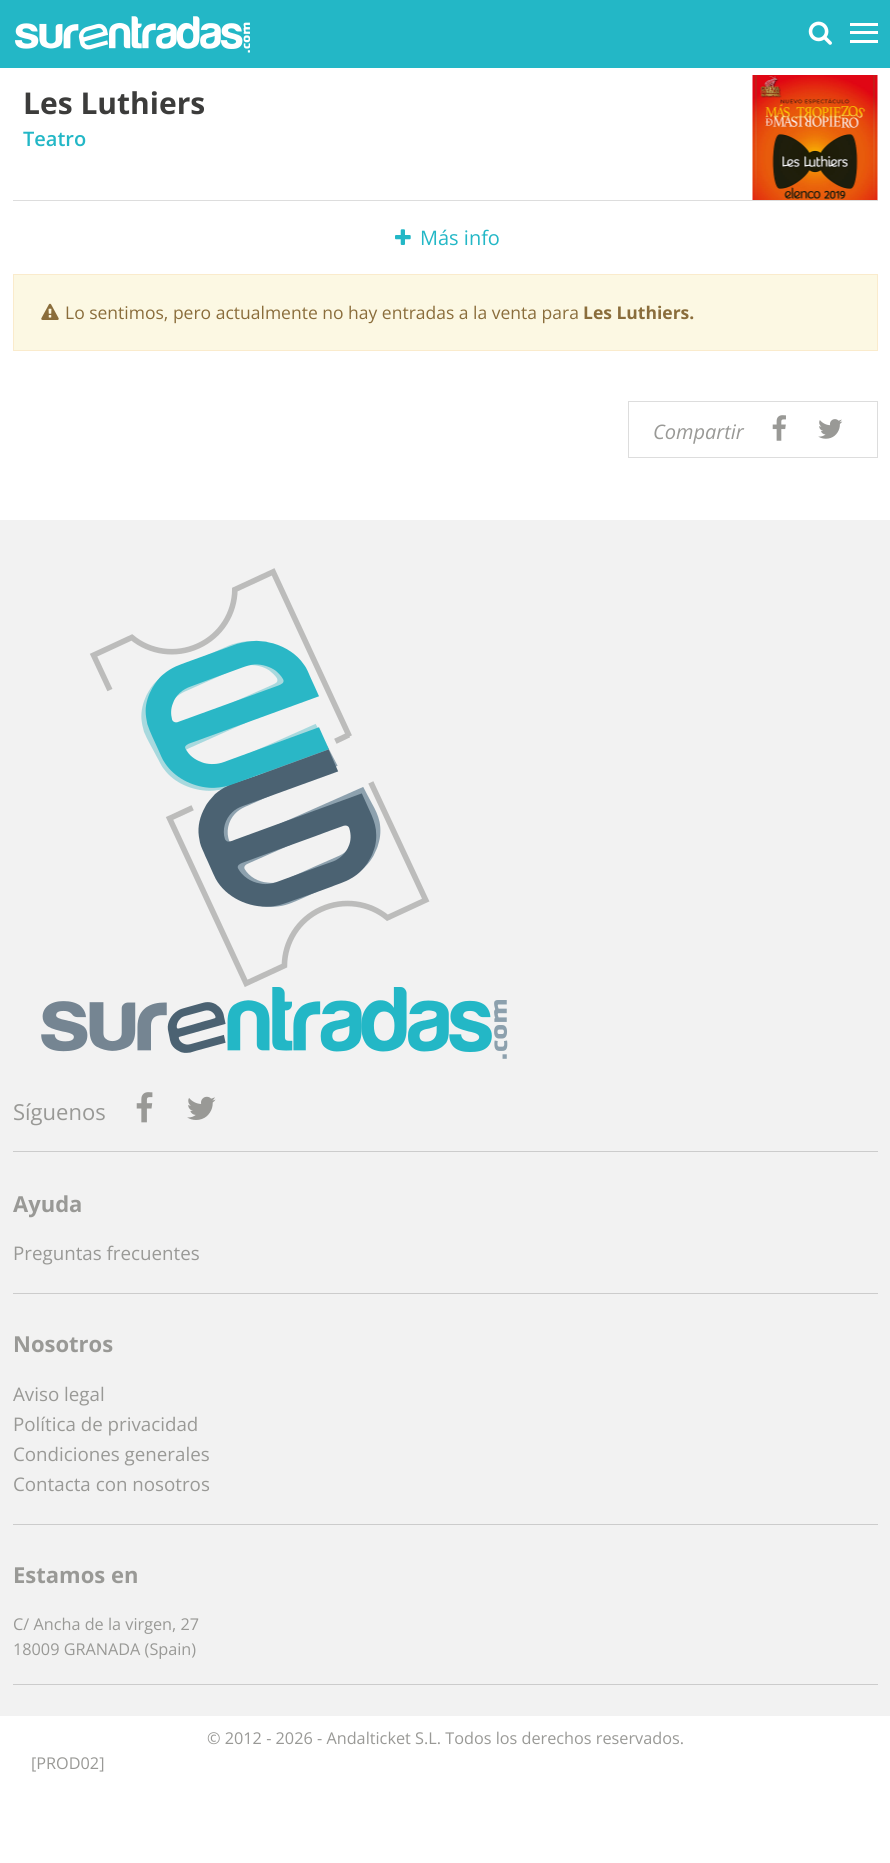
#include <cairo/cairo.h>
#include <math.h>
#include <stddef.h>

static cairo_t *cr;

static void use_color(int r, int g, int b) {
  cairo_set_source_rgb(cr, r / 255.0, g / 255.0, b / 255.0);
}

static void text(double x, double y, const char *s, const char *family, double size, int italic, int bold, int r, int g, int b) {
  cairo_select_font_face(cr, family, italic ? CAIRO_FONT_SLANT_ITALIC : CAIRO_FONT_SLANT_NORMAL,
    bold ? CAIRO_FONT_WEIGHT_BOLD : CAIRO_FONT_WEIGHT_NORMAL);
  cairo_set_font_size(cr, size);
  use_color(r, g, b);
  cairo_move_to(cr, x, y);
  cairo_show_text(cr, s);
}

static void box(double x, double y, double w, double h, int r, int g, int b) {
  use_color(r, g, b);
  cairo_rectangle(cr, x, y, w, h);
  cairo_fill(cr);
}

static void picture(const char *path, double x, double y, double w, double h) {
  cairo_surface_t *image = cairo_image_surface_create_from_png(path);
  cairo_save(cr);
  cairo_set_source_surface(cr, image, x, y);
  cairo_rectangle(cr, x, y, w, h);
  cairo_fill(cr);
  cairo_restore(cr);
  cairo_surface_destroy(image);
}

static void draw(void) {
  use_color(255, 255, 255);
  cairo_paint(cr);
  box(0, 0, 890, 68, 35, 183, 198);
  picture("img_01.png", 15, 16, 235, 37);
  picture("img_02.png", 808, 21, 24, 24);
  box(850, 23, 28, 3, 255, 255, 255);
  box(850, 31, 28, 3, 255, 255, 255);
  box(850, 40, 28, 3, 255, 255, 255);
  box(13, 200, 865, 1, 221, 221, 221);
  picture("img_03.png", 752, 75, 126, 125);
  picture("img_04.png", 395, 229, 16, 16);
  use_color(252, 248, 227);
  cairo_rectangle(cr, 13.5, 274.5, 864, 76);
  cairo_fill_preserve(cr);
  use_color(250, 235, 204);
  cairo_set_line_width(cr, 1);
  cairo_stroke(cr);
  picture("img_05.png", 41, 303, 18, 17);
  cairo_rectangle(cr, 628.5, 401.5, 249, 56);
  use_color(221, 221, 221);
  cairo_stroke(cr);
  picture("img_06.png", 772, 415, 14, 26);
  picture("img_07.png", 818, 419, 25, 20);
  box(0, 520, 890, 1196, 242, 242, 242);
  box(13, 1151, 865, 1, 204, 204, 204);
  picture("img_08.png", 41, 568, 467, 491);
  picture("img_09.png", 136, 1092, 17, 31);
  picture("img_10.png", 187, 1096, 29, 24);
  box(13, 1293, 865, 1, 204, 204, 204);
  box(13, 1524, 865, 1, 204, 204, 204);
  box(13, 1684, 865, 1, 204, 204, 204);
  text(23, 114, "Les Luthiers", "Open Sans", 30, 0, 1, 60, 60, 59);
  text(23, 146, "Teatro", "Open Sans SemiBold", 20, 0, 0, 35, 183, 198);
  text(420, 245, "Más info", "Open Sans", 20, 0, 0, 35, 183, 198);
  text(65, 319, "Lo sentimos, pero actualmente no hay entradas a la venta para", "Open Sans", 17.5, 0, 0, 138, 109, 59);
  text(583, 319, "Les Luthiers.", "Open Sans", 17.5, 0, 1, 138, 109, 59);
  text(653, 439, "Compartir", "Open Sans", 20, 1, 0, 153, 153, 150);
  text(13, 1120, "Síguenos", "Open Sans", 22, 0, 0, 153, 153, 150);
  text(13, 1212, "Ayuda", "Open Sans", 22, 0, 1, 153, 153, 150);
  text(13, 1260, "Preguntas frecuentes", "Open Sans", 18.75, 0, 0, 153, 153, 150);
  text(13, 1352, "Nosotros", "Open Sans", 22, 0, 1, 153, 153, 150);
  text(13, 1401, "Aviso legal", "Open Sans", 18.75, 0, 0, 153, 153, 150);
  text(13, 1431, "Política de privacidad", "Open Sans", 18.75, 0, 0, 153, 153, 150);
  text(13, 1461, "Condiciones generales", "Open Sans", 18.75, 0, 0, 153, 153, 150);
  text(13, 1491, "Contacta con nosotros", "Open Sans", 18.75, 0, 0, 153, 153, 150);
  text(13, 1583, "Estamos en", "Open Sans", 22, 0, 1, 153, 153, 150);
  text(13, 1630, "C/ Ancha de la virgen, 27", "Open Sans", 16.25, 0, 0, 153, 153, 150);
  text(13, 1655, "18009 GRANADA (Spain)", "Open Sans", 16.25, 0, 0, 153, 153, 150);
  text(207, 1744, "© 2012 - 2026 - Andalticket S.L. Todos los derechos reservados.", "Open Sans", 16.25, 0, 0, 153, 153, 150);
  text(31, 1769, "[PROD02]", "Open Sans", 16.25, 0, 0, 153, 153, 150);
}

int main(void) {
  cairo_surface_t *surface = cairo_image_surface_create(CAIRO_FORMAT_RGB24, 890, 1863);
  cr = cairo_create(surface);
  cairo_font_options_t *options = cairo_font_options_create();
  cairo_font_options_set_hint_metrics(options, CAIRO_HINT_METRICS_OFF);
  cairo_font_options_set_hint_style(options, CAIRO_HINT_STYLE_NONE);
  cairo_set_font_options(cr, options);
  cairo_set_miter_limit(cr, 4);
  draw();
  cairo_surface_write_to_png(surface, "out.png");
  cairo_font_options_destroy(options);
  cairo_destroy(cr);
  cairo_surface_destroy(surface);
  return 0;
}
